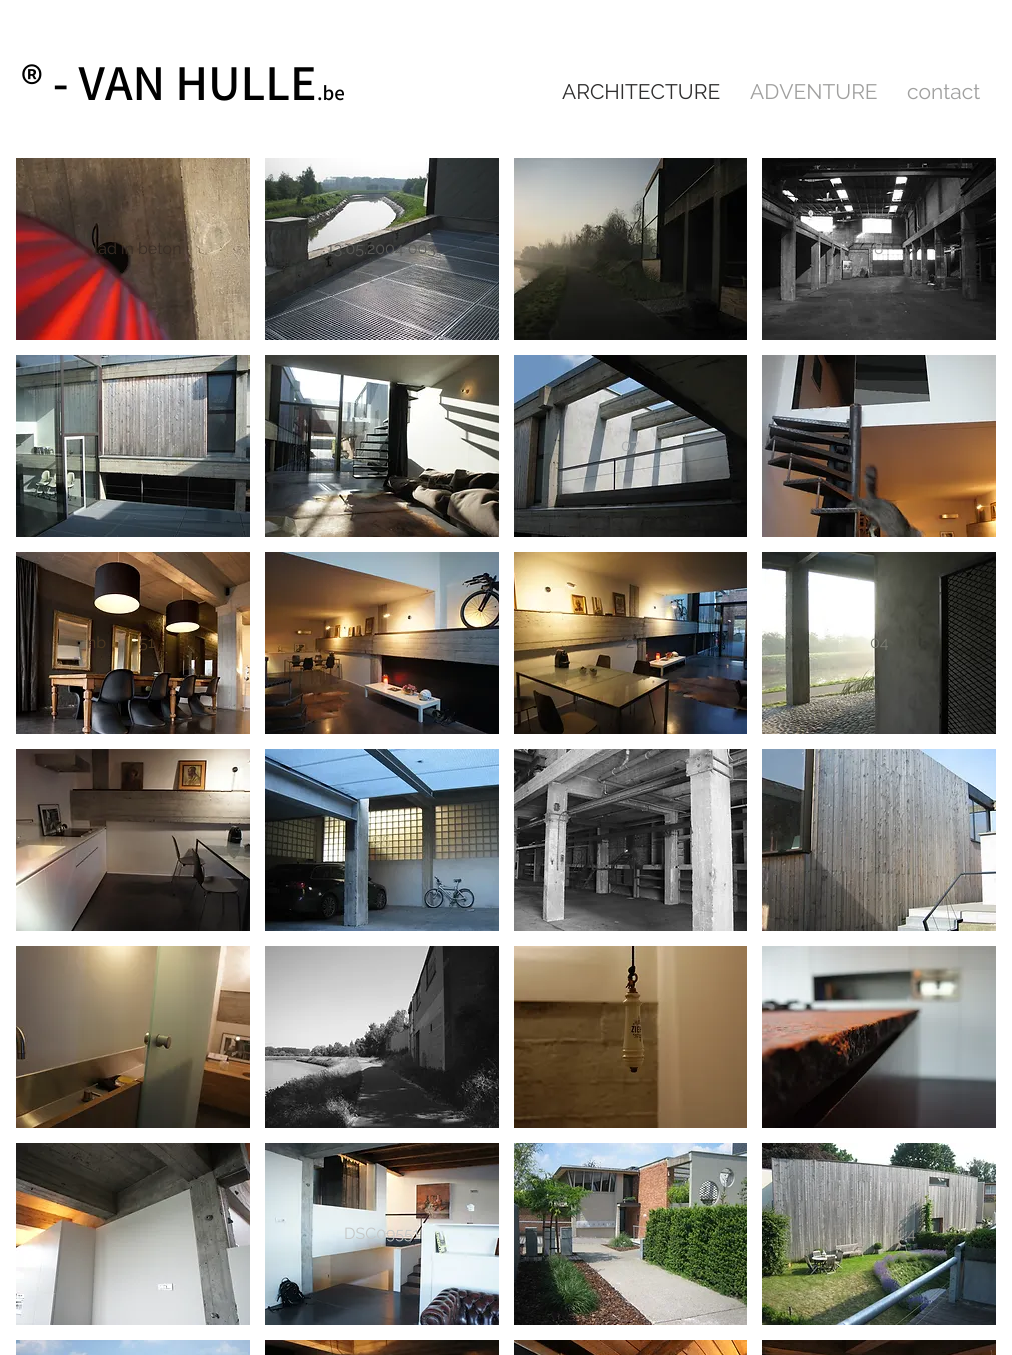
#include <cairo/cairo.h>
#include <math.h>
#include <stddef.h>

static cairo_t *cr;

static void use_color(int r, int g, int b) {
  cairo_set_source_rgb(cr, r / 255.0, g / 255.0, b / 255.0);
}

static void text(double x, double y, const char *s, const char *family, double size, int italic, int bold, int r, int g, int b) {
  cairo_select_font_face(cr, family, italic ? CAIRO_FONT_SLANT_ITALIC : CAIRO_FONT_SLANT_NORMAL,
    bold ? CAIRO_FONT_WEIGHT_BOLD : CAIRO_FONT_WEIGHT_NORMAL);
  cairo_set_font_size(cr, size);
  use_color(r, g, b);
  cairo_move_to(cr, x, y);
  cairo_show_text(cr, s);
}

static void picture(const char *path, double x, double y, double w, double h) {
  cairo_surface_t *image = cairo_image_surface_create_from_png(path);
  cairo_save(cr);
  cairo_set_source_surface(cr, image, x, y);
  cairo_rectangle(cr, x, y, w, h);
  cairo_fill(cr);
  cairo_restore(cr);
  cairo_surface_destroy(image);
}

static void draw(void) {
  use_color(255, 255, 255);
  cairo_paint(cr);
  picture("img_01.png", 16, 158, 234, 182);
  picture("img_02.png", 265, 158, 234, 182);
  picture("img_03.png", 514, 158, 233, 182);
  picture("img_04.png", 762, 158, 234, 182);
  picture("img_05.png", 16, 355, 234, 182);
  picture("img_06.png", 265, 355, 234, 182);
  picture("img_07.png", 514, 355, 233, 182);
  picture("img_08.png", 762, 355, 234, 182);
  picture("img_09.png", 16, 552, 234, 182);
  picture("img_10.png", 265, 552, 234, 182);
  picture("img_11.png", 514, 552, 233, 182);
  picture("img_12.png", 762, 552, 234, 182);
  picture("img_13.png", 16, 749, 234, 182);
  picture("img_14.png", 265, 749, 234, 182);
  picture("img_15.png", 514, 749, 233, 182);
  picture("img_16.png", 762, 749, 234, 182);
  picture("img_17.png", 16, 946, 234, 182);
  picture("img_18.png", 265, 946, 234, 182);
  picture("img_19.png", 514, 946, 233, 182);
  picture("img_20.png", 762, 946, 234, 182);
  picture("img_21.png", 16, 1143, 234, 182);
  picture("img_22.png", 265, 1143, 234, 182);
  picture("img_23.png", 514, 1143, 233, 182);
  picture("img_24.png", 762, 1143, 234, 182);
  picture("img_25.png", 16, 1340, 234, 15);
  picture("img_26.png", 265, 1340, 234, 15);
  picture("img_27.png", 514, 1340, 233, 15);
  picture("img_28.png", 762, 1340, 234, 15);
  text(21, 100, "® - VAN HULLE", "Assistant SemiBold", 50, 0, 0, 0, 0, 0);
  text(317, 100, ".be", "Assistant SemiBold", 21, 0, 0, 0, 0, 0);
  text(562, 99, "ARCHITECTURE", "Raleway", 21, 0, 0, 47, 46, 46);
  text(750, 99, "ADVENTURE", "Raleway", 21, 0, 0, 160, 160, 159);
  text(907, 99, "contact", "Raleway", 21, 0, 0, 160, 160, 159);
  text(94, 254, "lad in beton", "Raleway", 16, 0, 0, 58, 45, 37);
  text(327, 254, "13.05.2004 003", "Raleway", 16, 0, 0, 89, 89, 87);
  text(650, 254, "d", "Raleway", 16, 0, 0, 37, 38, 32);
  text(874, 254, "8", "Raleway", 16, 0, 0, 160, 160, 159);
  text(377, 451, "7", "Raleway", 16, 0, 0, 48, 55, 53);
  text(621, 451, "07", "Raleway", 16, 0, 0, 171, 174, 175);
  text(87, 648, "nb", "Raleway", 16, 0, 0, 76, 56, 33);
  text(139, 648, "51", "Raleway", 16, 0, 0, 76, 56, 33);
  text(626, 648, "2", "Raleway", 16, 0, 0, 89, 82, 78);
  text(870, 648, "04", "Raleway", 16, 0, 0, 123, 124, 114);
  text(372, 845, "05", "Raleway", 16, 0, 0, 196, 186, 144);
  text(344, 1239, "DSC09551", "Raleway", 16, 0, 0, 196, 199, 198);
  text(907, 1239, "4", "Raleway", 16, 0, 0, 142, 142, 135);
}

int main(void) {
  cairo_surface_t *surface = cairo_image_surface_create(CAIRO_FORMAT_RGB24, 1012, 1355);
  cr = cairo_create(surface);
  cairo_font_options_t *options = cairo_font_options_create();
  cairo_font_options_set_hint_metrics(options, CAIRO_HINT_METRICS_OFF);
  cairo_font_options_set_hint_style(options, CAIRO_HINT_STYLE_NONE);
  cairo_set_font_options(cr, options);
  cairo_set_miter_limit(cr, 4);
  draw();
  cairo_surface_write_to_png(surface, "out.png");
  cairo_font_options_destroy(options);
  cairo_destroy(cr);
  cairo_surface_destroy(surface);
  return 0;
}
